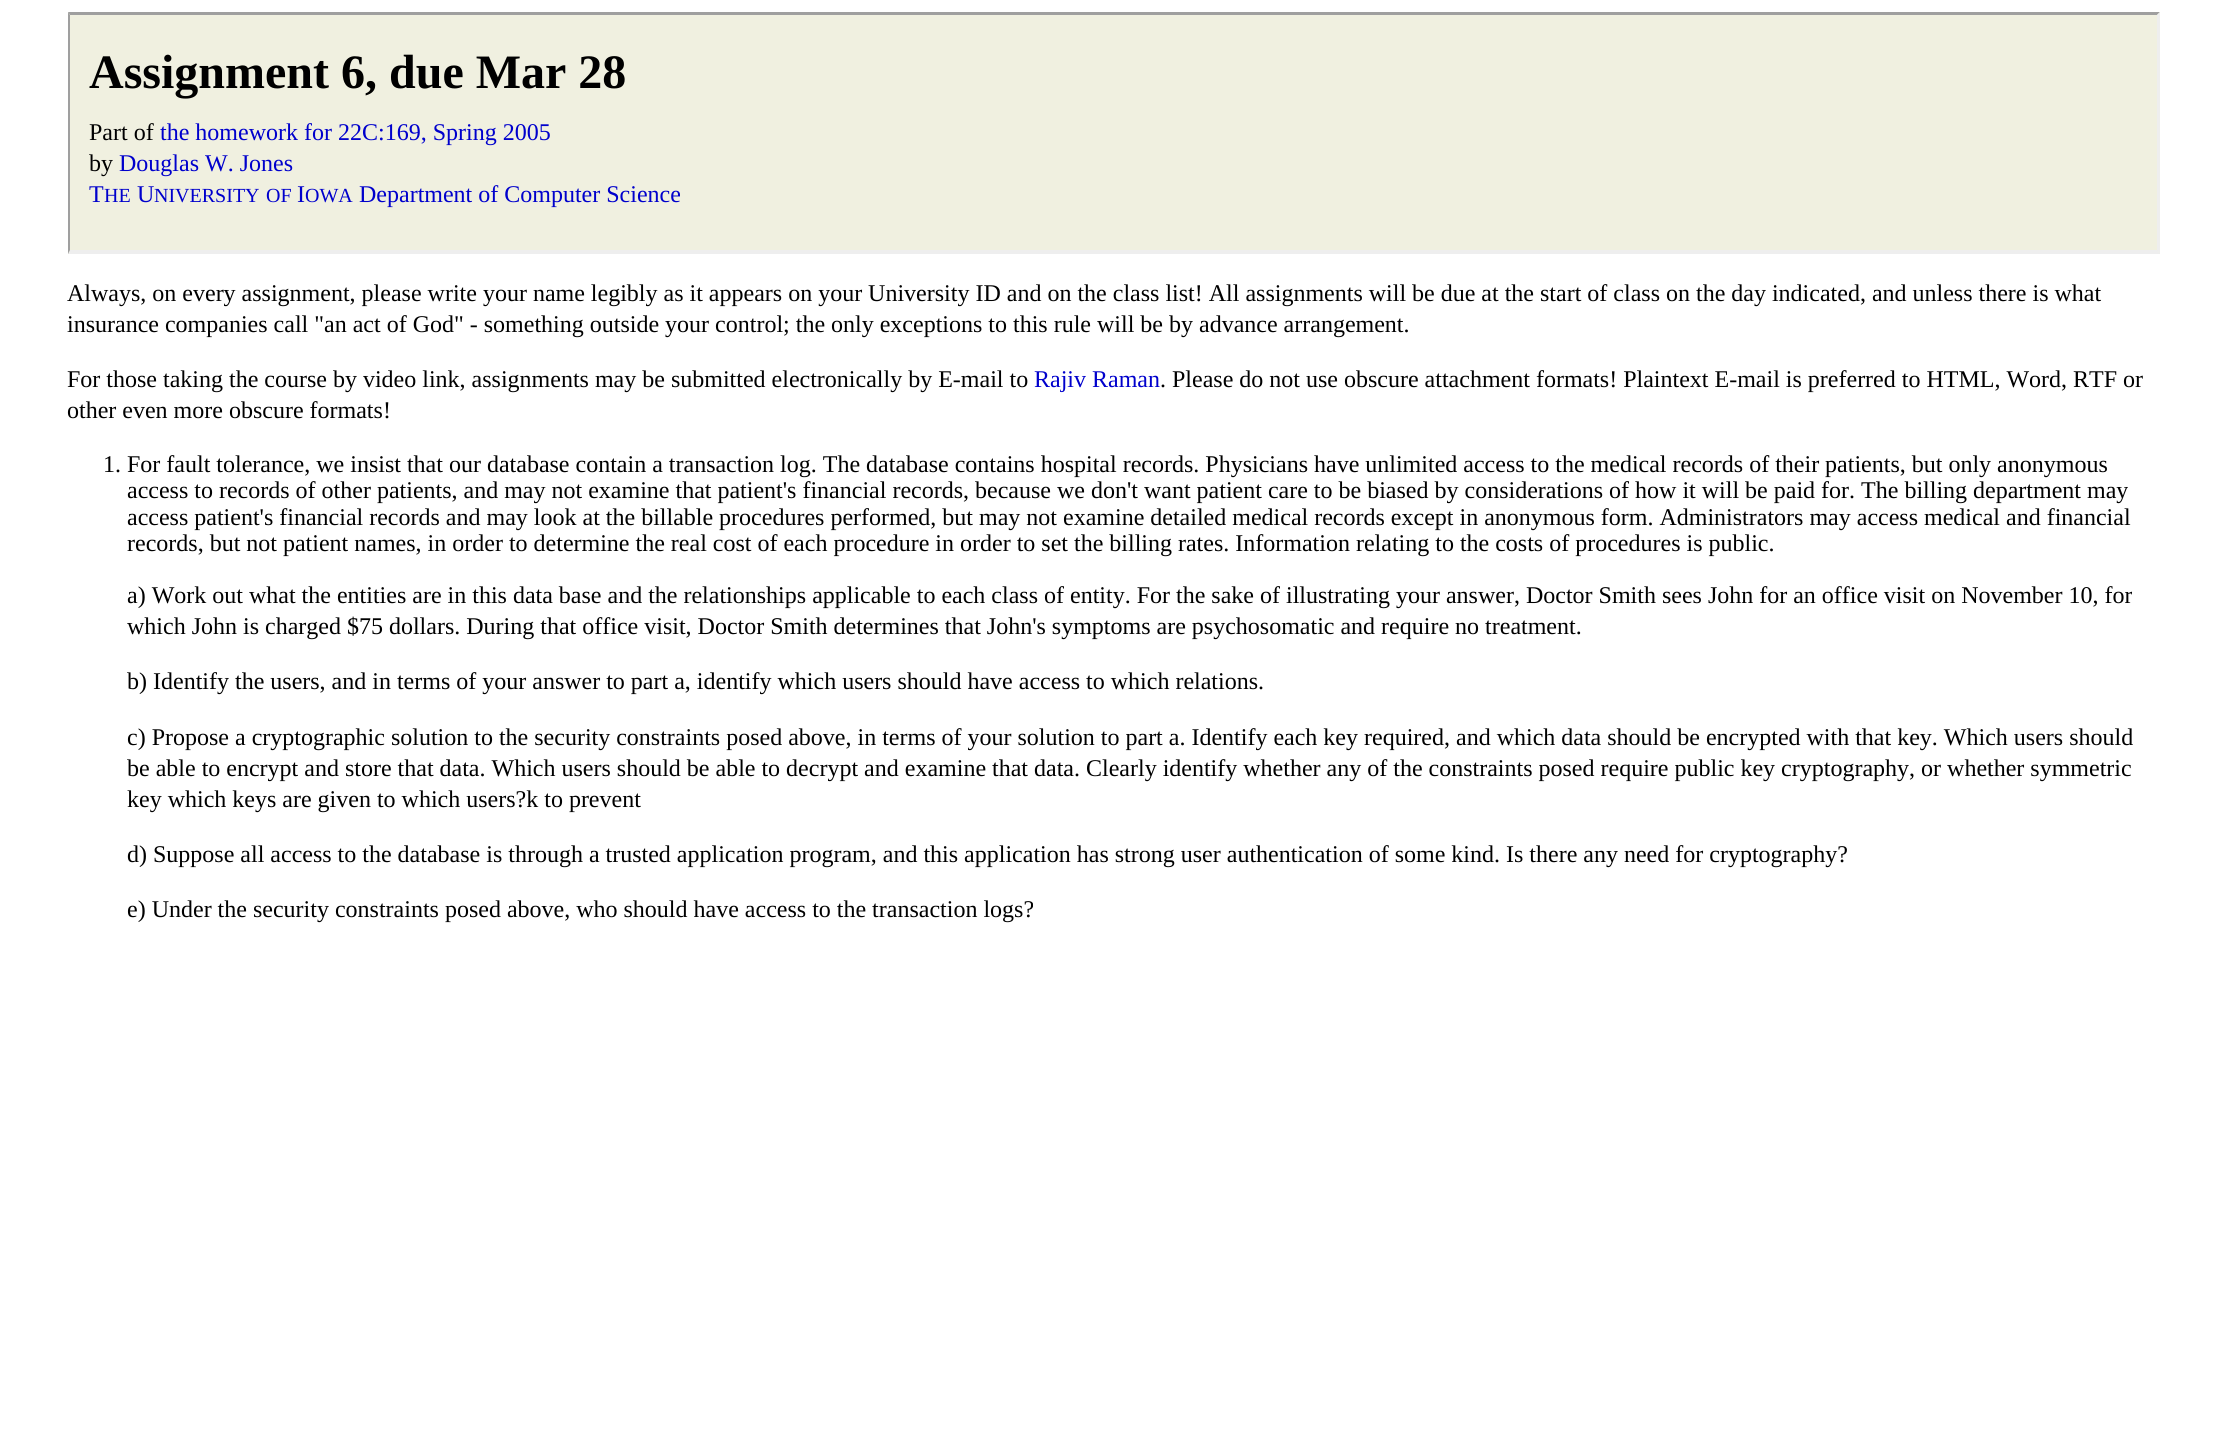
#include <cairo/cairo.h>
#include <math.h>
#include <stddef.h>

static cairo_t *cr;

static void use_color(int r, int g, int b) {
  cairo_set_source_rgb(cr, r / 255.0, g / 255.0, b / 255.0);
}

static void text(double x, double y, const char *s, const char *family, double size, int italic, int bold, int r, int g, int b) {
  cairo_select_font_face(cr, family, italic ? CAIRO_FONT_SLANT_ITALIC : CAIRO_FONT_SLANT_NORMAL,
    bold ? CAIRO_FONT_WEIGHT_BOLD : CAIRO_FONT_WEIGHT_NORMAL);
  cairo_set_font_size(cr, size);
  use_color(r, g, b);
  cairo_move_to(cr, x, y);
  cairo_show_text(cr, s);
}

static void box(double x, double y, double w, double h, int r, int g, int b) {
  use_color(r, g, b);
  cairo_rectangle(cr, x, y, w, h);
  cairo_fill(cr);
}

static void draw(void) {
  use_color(255, 255, 255);
  cairo_paint(cr);
  box(68, 12, 2092, 242, 240, 240, 224);
  use_color(159, 159, 159);
  cairo_new_path(cr);
  cairo_move_to(cr, 68, 12);
  cairo_line_to(cr, 2160, 12);
  cairo_line_to(cr, 2157, 15);
  cairo_line_to(cr, 70, 15);
  cairo_close_path(cr);
  cairo_fill(cr);
  use_color(238, 238, 238);
  cairo_new_path(cr);
  cairo_move_to(cr, 2160, 12);
  cairo_line_to(cr, 2160, 254);
  cairo_line_to(cr, 2157, 250);
  cairo_line_to(cr, 2157, 15);
  cairo_close_path(cr);
  cairo_fill(cr);
  cairo_new_path(cr);
  cairo_move_to(cr, 2160, 254);
  cairo_line_to(cr, 68, 254);
  cairo_line_to(cr, 70, 250);
  cairo_line_to(cr, 2157, 250);
  cairo_close_path(cr);
  cairo_fill(cr);
  use_color(159, 159, 159);
  cairo_new_path(cr);
  cairo_move_to(cr, 68, 254);
  cairo_line_to(cr, 68, 12);
  cairo_line_to(cr, 70, 15);
  cairo_line_to(cr, 70, 250);
  cairo_close_path(cr);
  cairo_fill(cr);
  text(89, 88, "Assignment 6, due Mar 28", "Liberation Serif", 48, 0, 1, 0, 0, 0);
  text(89, 140, "Part of", "Liberation Serif", 24, 0, 0, 0, 0, 0);
  text(160, 140, "the homework for 22C:169, Spring 2005", "Liberation Serif", 24, 0, 0, 0, 0, 204);
  text(89, 171, "by", "Liberation Serif", 24, 0, 0, 0, 0, 0);
  text(119, 171, "Douglas W. Jones", "Liberation Serif", 24, 0, 0, 0, 0, 204);
  text(89, 202, "T", "Liberation Serif", 24, 0, 0, 0, 0, 204);
  text(104, 202, "HE", "Liberation Serif", 20, 0, 0, 0, 0, 204);
  text(137, 202, "U", "Liberation Serif", 24, 0, 0, 0, 0, 204);
  text(154, 202, "NIVERSITY", "Liberation Serif", 20, 0, 0, 0, 0, 204);
  text(266, 202, "OF", "Liberation Serif", 20, 0, 0, 0, 0, 204);
  text(297, 202, "I", "Liberation Serif", 24, 0, 0, 0, 0, 204);
  text(305, 202, "OWA", "Liberation Serif", 20, 0, 0, 0, 0, 204);
  text(359, 202, "Department of Computer Science", "Liberation Serif", 24, 0, 0, 0, 0, 204);
  text(67, 301, "Always, on every assignment, please write your name legibly as it appears on your University ID and on the class list! All assignments will be due at the start of class on the day indicated, and unless there is what", "Liberation Serif", 24, 0, 0, 0, 0, 0);
  text(67, 332, "insurance companies call \"an act of God\" - something outside your control; the only exceptions to this rule will be by advance arrangement.", "Liberation Serif", 24, 0, 0, 0, 0, 0);
  text(67, 387, "For those taking the course by video link, assignments may be submitted electronically by E-mail to", "Liberation Serif", 24, 0, 0, 0, 0, 0);
  text(1034, 387, "Rajiv Raman", "Liberation Serif", 24, 0, 0, 0, 0, 204);
  text(1160, 387, ". Please do not use obscure attachment formats! Plaintext E-mail is preferred to HTML, Word, RTF or", "Liberation Serif", 24, 0, 0, 0, 0, 0);
  text(67, 418, "other even more obscure formats!", "Liberation Serif", 24, 0, 0, 0, 0, 0);
  text(103, 472, "1. For fault tolerance, we insist that our database contain a transaction log. The database contains hospital records. Physicians have unlimited access to the medical records of their patients, but only anonymous", "Liberation Serif", 24, 0, 0, 0, 0, 0);
  text(127, 498, "access to records of other patients, and may not examine that patient's financial records, because we don't want patient care to be biased by considerations of how it will be paid for. The billing department may", "Liberation Serif", 24, 0, 0, 0, 0, 0);
  text(127, 525, "access patient's financial records and may look at the billable procedures performed, but may not examine detailed medical records except in anonymous form. Administrators may access medical and financial", "Liberation Serif", 24, 0, 0, 0, 0, 0);
  text(127, 551, "records, but not patient names, in order to determine the real cost of each procedure in order to set the billing rates. Information relating to the costs of procedures is public.", "Liberation Serif", 24, 0, 0, 0, 0, 0);
  text(127, 603, "a) Work out what the entities are in this data base and the relationships applicable to each class of entity. For the sake of illustrating your answer, Doctor Smith sees John for an office visit on November 10, for", "Liberation Serif", 24, 0, 0, 0, 0, 0);
  text(127, 634, "which John is charged $75 dollars. During that office visit, Doctor Smith determines that John's symptoms are psychosomatic and require no treatment.", "Liberation Serif", 24, 0, 0, 0, 0, 0);
  text(127, 689, "b) Identify the users, and in terms of your answer to part a, identify which users should have access to which relations.", "Liberation Serif", 24, 0, 0, 0, 0, 0);
  text(127, 745, "c) Propose a cryptographic solution to the security constraints posed above, in terms of your solution to part a. Identify each key required, and which data should be encrypted with that key. Which users should", "Liberation Serif", 24, 0, 0, 0, 0, 0);
  text(127, 776, "be able to encrypt and store that data. Which users should be able to decrypt and examine that data. Clearly identify whether any of the constraints posed require public key cryptography, or whether symmetric", "Liberation Serif", 24, 0, 0, 0, 0, 0);
  text(127, 807, "key which keys are given to which users?k to prevent", "Liberation Serif", 24, 0, 0, 0, 0, 0);
  text(127, 862, "d) Suppose all access to the database is through a trusted application program, and this application has strong user authentication of some kind. Is there any need for cryptography?", "Liberation Serif", 24, 0, 0, 0, 0, 0);
  text(127, 917, "e) Under the security constraints posed above, who should have access to the transaction logs?", "Liberation Serif", 24, 0, 0, 0, 0, 0);
}

int main(void) {
  cairo_surface_t *surface = cairo_image_surface_create(CAIRO_FORMAT_RGB24, 2227, 1431);
  cr = cairo_create(surface);
  cairo_font_options_t *options = cairo_font_options_create();
  cairo_font_options_set_hint_metrics(options, CAIRO_HINT_METRICS_OFF);
  cairo_font_options_set_hint_style(options, CAIRO_HINT_STYLE_NONE);
  cairo_set_font_options(cr, options);
  cairo_set_miter_limit(cr, 4);
  draw();
  cairo_surface_write_to_png(surface, "out.png");
  cairo_font_options_destroy(options);
  cairo_destroy(cr);
  cairo_surface_destroy(surface);
  return 0;
}
